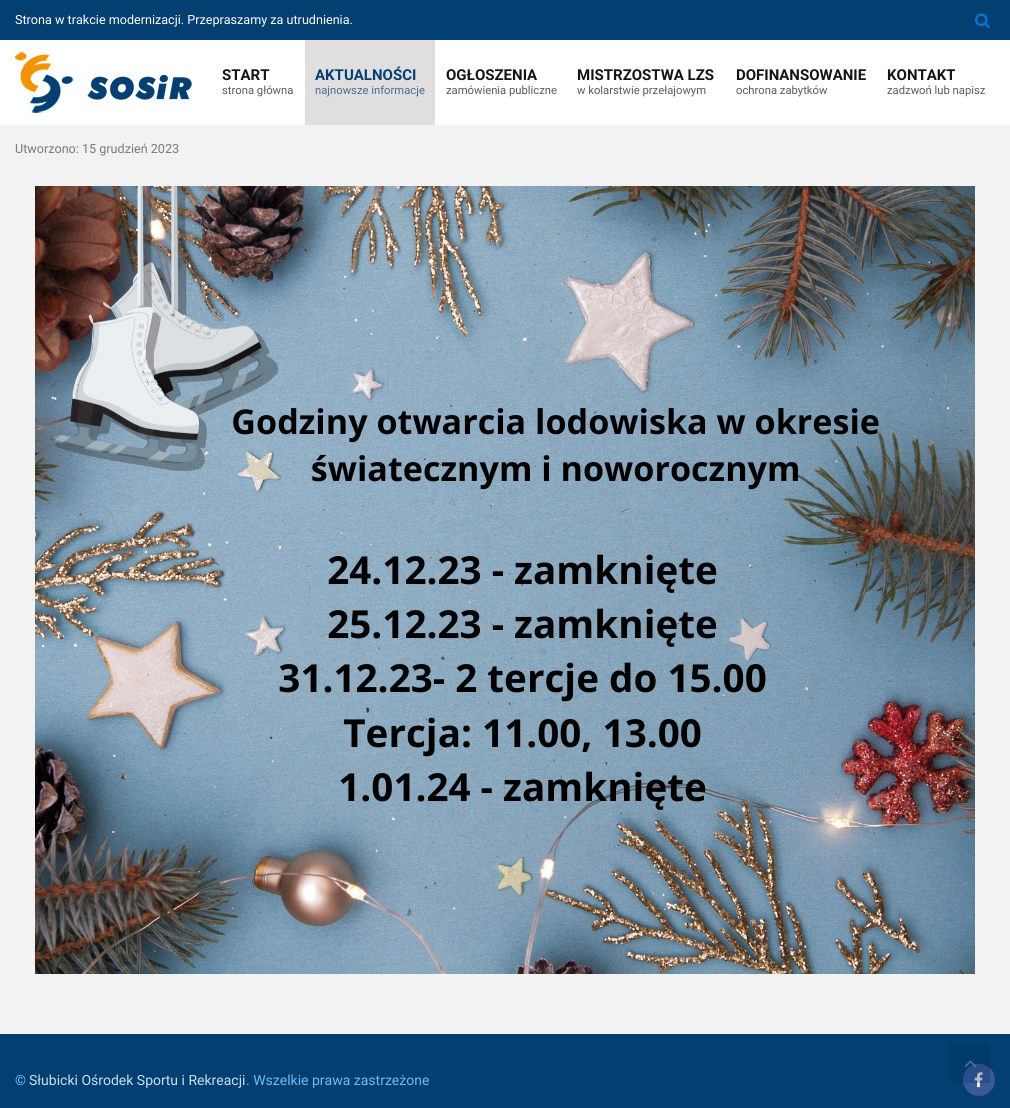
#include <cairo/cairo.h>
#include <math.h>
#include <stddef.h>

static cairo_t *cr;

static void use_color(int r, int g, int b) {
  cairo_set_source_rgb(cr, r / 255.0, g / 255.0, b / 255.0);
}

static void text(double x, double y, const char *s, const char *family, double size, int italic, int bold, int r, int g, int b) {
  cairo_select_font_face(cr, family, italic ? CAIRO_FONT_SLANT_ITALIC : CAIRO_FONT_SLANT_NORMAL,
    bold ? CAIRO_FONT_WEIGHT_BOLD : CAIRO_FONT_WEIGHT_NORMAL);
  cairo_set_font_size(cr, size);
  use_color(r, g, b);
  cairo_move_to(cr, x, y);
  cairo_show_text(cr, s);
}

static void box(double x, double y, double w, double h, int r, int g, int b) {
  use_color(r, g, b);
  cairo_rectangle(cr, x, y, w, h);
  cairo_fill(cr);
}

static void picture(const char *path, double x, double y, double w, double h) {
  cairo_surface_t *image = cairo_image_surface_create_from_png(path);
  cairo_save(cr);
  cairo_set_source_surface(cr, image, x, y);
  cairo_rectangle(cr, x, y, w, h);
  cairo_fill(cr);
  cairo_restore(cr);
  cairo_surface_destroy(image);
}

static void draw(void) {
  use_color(242, 242, 242);
  cairo_paint(cr);
  box(0, 0, 1010, 40, 3, 63, 113);
  picture("img_01.png", 975, 13, 15, 16);
  box(0, 40, 1010, 85, 255, 255, 255);
  picture("img_02.png", 15, 52, 177, 61);
  box(305, 40, 130, 85, 224, 222, 223);
  picture("img_03.png", 35, 186, 940, 788);
  box(0, 1034, 1010, 74, 3, 63, 113);
  use_color(59, 89, 153);
  cairo_arc(cr, 979, 1080, 16, 0, 2 * M_PI);
  cairo_fill(cr);
  picture("img_04.png", 974, 1072, 9, 16);
  cairo_set_source_rgba(cr, 0.008, 0.196, 0.353, 0.3);
  cairo_rectangle(cr, 950, 1043, 40, 40);
  cairo_fill(cr);
  picture("img_05.png", 965, 1060, 11, 7);
  text(15, 24, "Strona w trakcie modernizacji. Przepraszamy za utrudnienia.", "Roboto", 12.6, 0, 0, 255, 255, 255);
  text(222, 80, "START", "Roboto", 15, 0, 1, 21, 20, 20);
  text(222, 94, "strona główna", "Roboto", 11.25, 0, 0, 91, 91, 91);
  text(315, 80, "AKTUALNOŚCI", "Roboto", 15, 0, 1, 3, 63, 113);
  text(315, 94, "najnowsze informacje", "Roboto", 11.25, 0, 0, 69, 111, 146);
  text(446, 80, "OGŁOSZENIA", "Roboto", 15, 0, 1, 21, 20, 20);
  text(446, 94, "zamówienia publiczne", "Roboto", 11.25, 0, 0, 91, 91, 91);
  text(577, 80, "MISTRZOSTWA LZS", "Roboto", 15, 0, 1, 21, 20, 20);
  text(577, 94, "w kolarstwie przełajowym", "Roboto", 11.25, 0, 0, 91, 91, 91);
  text(736, 80, "DOFINANSOWANIE", "Roboto", 15, 0, 1, 21, 20, 20);
  text(736, 94, "ochrona zabytków", "Roboto", 11.25, 0, 0, 91, 91, 91);
  text(887, 80, "KONTAKT", "Roboto", 15, 0, 1, 21, 20, 20);
  text(887, 94, "zadzwoń lub napisz", "Roboto", 11.25, 0, 0, 91, 91, 91);
  text(15, 153, "Utworzono: 15 grudzień 2023", "Roboto", 12.6, 0, 0, 125, 120, 120);
  text(15, 1085, "©", "Roboto", 14, 0, 0, 112, 185, 245);
  text(29, 1085, "Słubicki Ośrodek Sportu i Rekreacji", "Roboto", 14, 0, 0, 199, 224, 245);
  text(246, 1085, ". Wszelkie prawa zastrzeżone", "Roboto", 14, 0, 0, 112, 185, 245);
}

int main(void) {
  cairo_surface_t *surface = cairo_image_surface_create(CAIRO_FORMAT_RGB24, 1010, 1108);
  cr = cairo_create(surface);
  cairo_font_options_t *options = cairo_font_options_create();
  cairo_font_options_set_hint_metrics(options, CAIRO_HINT_METRICS_OFF);
  cairo_font_options_set_hint_style(options, CAIRO_HINT_STYLE_NONE);
  cairo_set_font_options(cr, options);
  cairo_set_miter_limit(cr, 4);
  draw();
  cairo_surface_write_to_png(surface, "out.png");
  cairo_font_options_destroy(options);
  cairo_destroy(cr);
  cairo_surface_destroy(surface);
  return 0;
}
